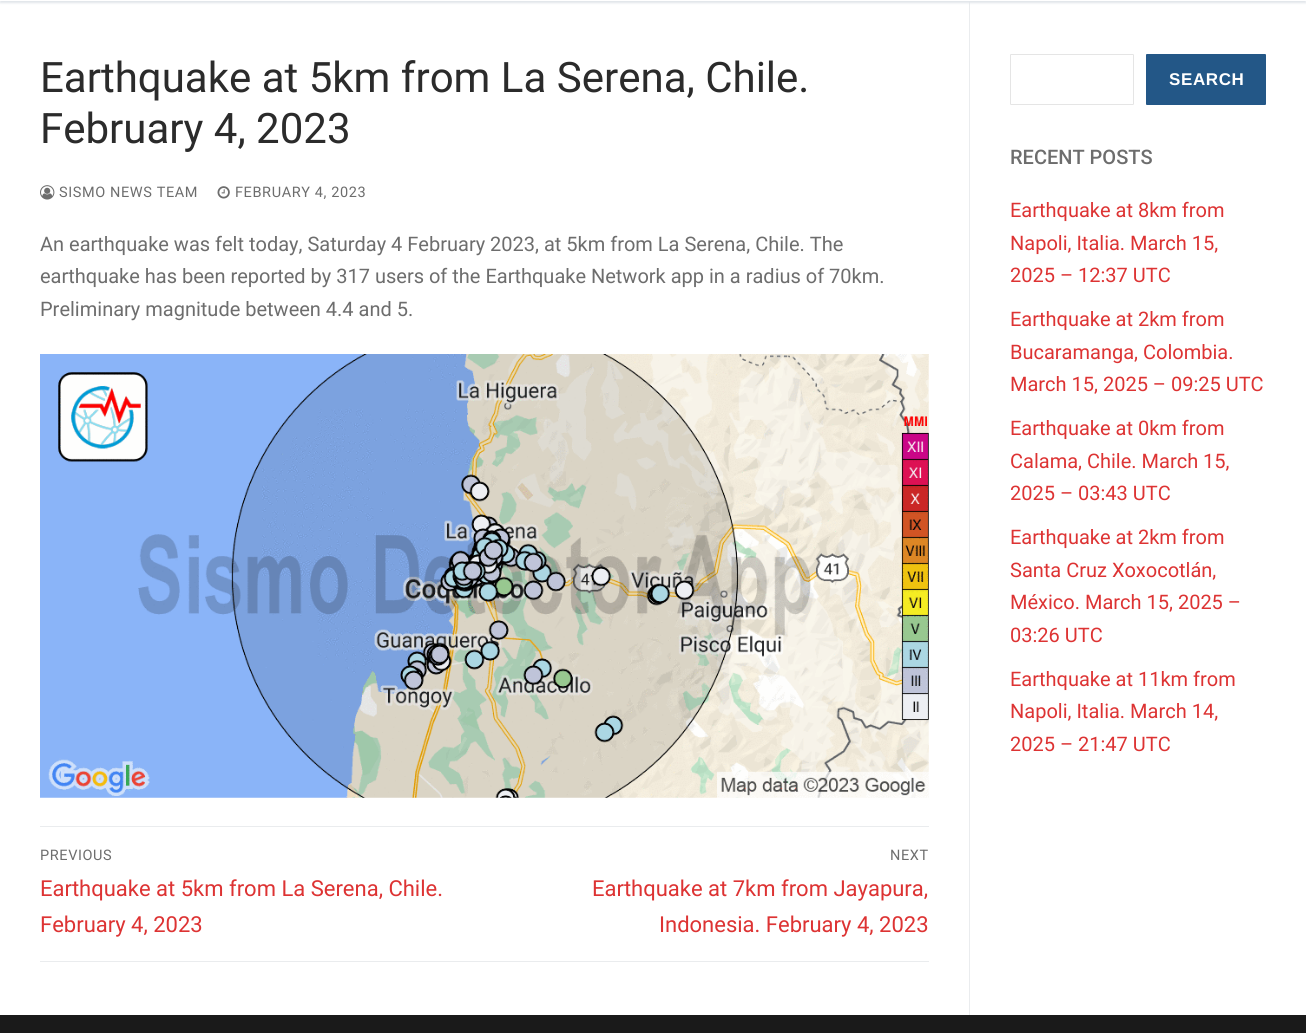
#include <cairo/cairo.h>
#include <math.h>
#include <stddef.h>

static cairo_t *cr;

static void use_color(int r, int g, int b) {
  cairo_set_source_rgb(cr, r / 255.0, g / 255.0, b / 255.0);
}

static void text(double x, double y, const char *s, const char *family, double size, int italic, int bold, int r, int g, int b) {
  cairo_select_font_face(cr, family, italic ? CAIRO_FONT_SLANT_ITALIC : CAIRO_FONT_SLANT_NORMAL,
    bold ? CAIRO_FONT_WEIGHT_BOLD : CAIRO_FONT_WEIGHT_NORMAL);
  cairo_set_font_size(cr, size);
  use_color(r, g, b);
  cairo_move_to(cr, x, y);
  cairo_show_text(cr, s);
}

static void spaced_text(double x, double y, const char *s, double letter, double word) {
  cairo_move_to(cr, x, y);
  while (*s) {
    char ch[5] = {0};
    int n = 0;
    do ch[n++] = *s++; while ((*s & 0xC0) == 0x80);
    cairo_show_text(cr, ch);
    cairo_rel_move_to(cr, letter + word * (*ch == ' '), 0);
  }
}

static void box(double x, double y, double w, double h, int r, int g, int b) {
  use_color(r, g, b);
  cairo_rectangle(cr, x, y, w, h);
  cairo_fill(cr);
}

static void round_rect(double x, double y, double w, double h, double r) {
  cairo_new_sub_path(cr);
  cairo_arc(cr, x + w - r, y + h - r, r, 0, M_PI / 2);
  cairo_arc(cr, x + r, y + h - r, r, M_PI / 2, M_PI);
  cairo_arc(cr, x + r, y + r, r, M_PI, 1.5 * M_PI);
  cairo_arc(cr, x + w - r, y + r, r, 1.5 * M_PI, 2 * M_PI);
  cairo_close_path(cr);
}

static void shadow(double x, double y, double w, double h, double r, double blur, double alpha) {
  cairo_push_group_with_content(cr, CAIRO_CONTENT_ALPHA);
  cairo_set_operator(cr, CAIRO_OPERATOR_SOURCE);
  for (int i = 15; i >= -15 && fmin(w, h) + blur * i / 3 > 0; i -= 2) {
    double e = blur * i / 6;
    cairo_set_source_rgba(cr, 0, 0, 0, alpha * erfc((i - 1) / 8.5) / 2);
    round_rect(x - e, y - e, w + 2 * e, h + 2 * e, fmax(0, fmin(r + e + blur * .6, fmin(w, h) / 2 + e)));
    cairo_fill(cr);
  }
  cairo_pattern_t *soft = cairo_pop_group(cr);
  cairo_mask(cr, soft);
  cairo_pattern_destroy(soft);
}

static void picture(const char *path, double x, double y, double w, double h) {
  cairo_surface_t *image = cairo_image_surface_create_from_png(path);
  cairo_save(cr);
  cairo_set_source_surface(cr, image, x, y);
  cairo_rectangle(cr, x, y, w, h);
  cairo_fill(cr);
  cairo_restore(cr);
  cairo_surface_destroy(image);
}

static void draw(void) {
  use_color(255, 255, 255);
  cairo_paint(cr);
  box(969, 1, 1, 1014, 234, 236, 238);
  cairo_save(cr);
  cairo_rectangle(cr, 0, 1, 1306, 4);
  cairo_clip(cr);
  use_color(225, 229, 234);
  shadow(0, -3, 1306, 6, 0, 1, 1);
  cairo_restore(cr);
  picture("img_01.png", 40, 185, 15, 15);
  picture("img_02.png", 217, 186, 13, 13);
  picture("img_03.png", 40, 354, 889, 444);
  box(40, 826, 889, 1, 234, 236, 238);
  box(40, 961, 889, 1, 234, 236, 238);
  round_rect(1010.5, 54.5, 123, 50, 0.5);
  use_color(229, 229, 229);
  cairo_set_line_width(cr, 1);
  cairo_stroke(cr);
  use_color(35, 87, 135);
  round_rect(1146, 54, 120, 51, 1);
  cairo_fill(cr);
  box(0, 1015, 1306, 18, 26, 26, 26);
  text(40, 92, "Earthquake at 5km from La Serena, Chile.", "Roboto", 42, 0, 0, 43, 43, 43);
  text(40, 143, "February 4, 2023", "Roboto", 42, 0, 0, 43, 43, 43);
  cairo_set_font_size(cr, 14.5);
  use_color(109, 109, 109);
  spaced_text(59, 197, "SISMO NEWS TEAM", 0.6, 0);
  spaced_text(235, 197, "FEBRUARY 4, 2023", 0.6, 0);
  text(40, 251, "An earthquake was felt today, Saturday 4 February 2023, at 5km from La Serena, Chile. The", "Roboto", 20, 0, 0, 109, 109, 109);
  text(40, 283, "earthquake has been reported by 317 users of the Earthquake Network app in a radius of 70km.", "Roboto", 20, 0, 0, 109, 109, 109);
  text(40, 316, "Preliminary magnitude between 4.4 and 5.", "Roboto", 20, 0, 0, 109, 109, 109);
  cairo_set_font_size(cr, 14.5);
  spaced_text(40, 860, "PREVIOUS", 0.6, 0);
  text(40, 896, "Earthquake at 5km from La Serena, Chile.", "Roboto", 22, 0, 0, 221, 51, 51);
  text(40, 932, "February 4, 2023", "Roboto", 22, 0, 0, 221, 51, 51);
  cairo_set_font_size(cr, 14.5);
  use_color(109, 109, 109);
  spaced_text(890, 860, "NEXT", 0.6, 0);
  text(592, 896, "Earthquake at 7km from Jayapura,", "Roboto", 22, 0, 0, 221, 51, 51);
  text(659, 932, "Indonesia. February 4, 2023", "Roboto", 22, 0, 0, 221, 51, 51);
  cairo_select_font_face(cr, "Liberation Sans", CAIRO_FONT_SLANT_NORMAL, CAIRO_FONT_WEIGHT_BOLD);
  cairo_set_font_size(cr, 17);
  use_color(255, 255, 255);
  spaced_text(1169, 85, "SEARCH", 0.6, 0);
  text(1010, 164, "RECENT POSTS", "Roboto Medium", 20, 0, 0, 109, 109, 109);
  text(1010, 217, "Earthquake at 8km from", "Roboto", 20, 0, 0, 221, 51, 51);
  text(1010, 250, "Napoli, Italia. March 15,", "Roboto", 20, 0, 0, 221, 51, 51);
  text(1010, 282, "2025 – 12:37 UTC", "Roboto", 20, 0, 0, 221, 51, 51);
  text(1010, 326, "Earthquake at 2km from", "Roboto", 20, 0, 0, 221, 51, 51);
  text(1010, 359, "Bucaramanga, Colombia.", "Roboto", 20, 0, 0, 221, 51, 51);
  text(1010, 391, "March 15, 2025 – 09:25 UTC", "Roboto", 20, 0, 0, 221, 51, 51);
  text(1010, 435, "Earthquake at 0km from", "Roboto", 20, 0, 0, 221, 51, 51);
  text(1010, 468, "Calama, Chile. March 15,", "Roboto", 20, 0, 0, 221, 51, 51);
  text(1010, 500, "2025 – 03:43 UTC", "Roboto", 20, 0, 0, 221, 51, 51);
  text(1010, 544, "Earthquake at 2km from", "Roboto", 20, 0, 0, 221, 51, 51);
  text(1010, 577, "Santa Cruz Xoxocotlán,", "Roboto", 20, 0, 0, 221, 51, 51);
  text(1010, 609, "México. March 15, 2025 –", "Roboto", 20, 0, 0, 221, 51, 51);
  text(1010, 642, "03:26 UTC", "Roboto", 20, 0, 0, 221, 51, 51);
  text(1010, 686, "Earthquake at 11km from", "Roboto", 20, 0, 0, 221, 51, 51);
  text(1010, 718, "Napoli, Italia. March 14,", "Roboto", 20, 0, 0, 221, 51, 51);
  text(1010, 751, "2025 – 21:47 UTC", "Roboto", 20, 0, 0, 221, 51, 51);
}

int main(void) {
  cairo_surface_t *surface = cairo_image_surface_create(CAIRO_FORMAT_RGB24, 1306, 1033);
  cr = cairo_create(surface);
  cairo_font_options_t *options = cairo_font_options_create();
  cairo_font_options_set_hint_metrics(options, CAIRO_HINT_METRICS_OFF);
  cairo_font_options_set_hint_style(options, CAIRO_HINT_STYLE_NONE);
  cairo_set_font_options(cr, options);
  cairo_set_miter_limit(cr, 4);
  draw();
  cairo_surface_write_to_png(surface, "out.png");
  cairo_font_options_destroy(options);
  cairo_destroy(cr);
  cairo_surface_destroy(surface);
  return 0;
}
